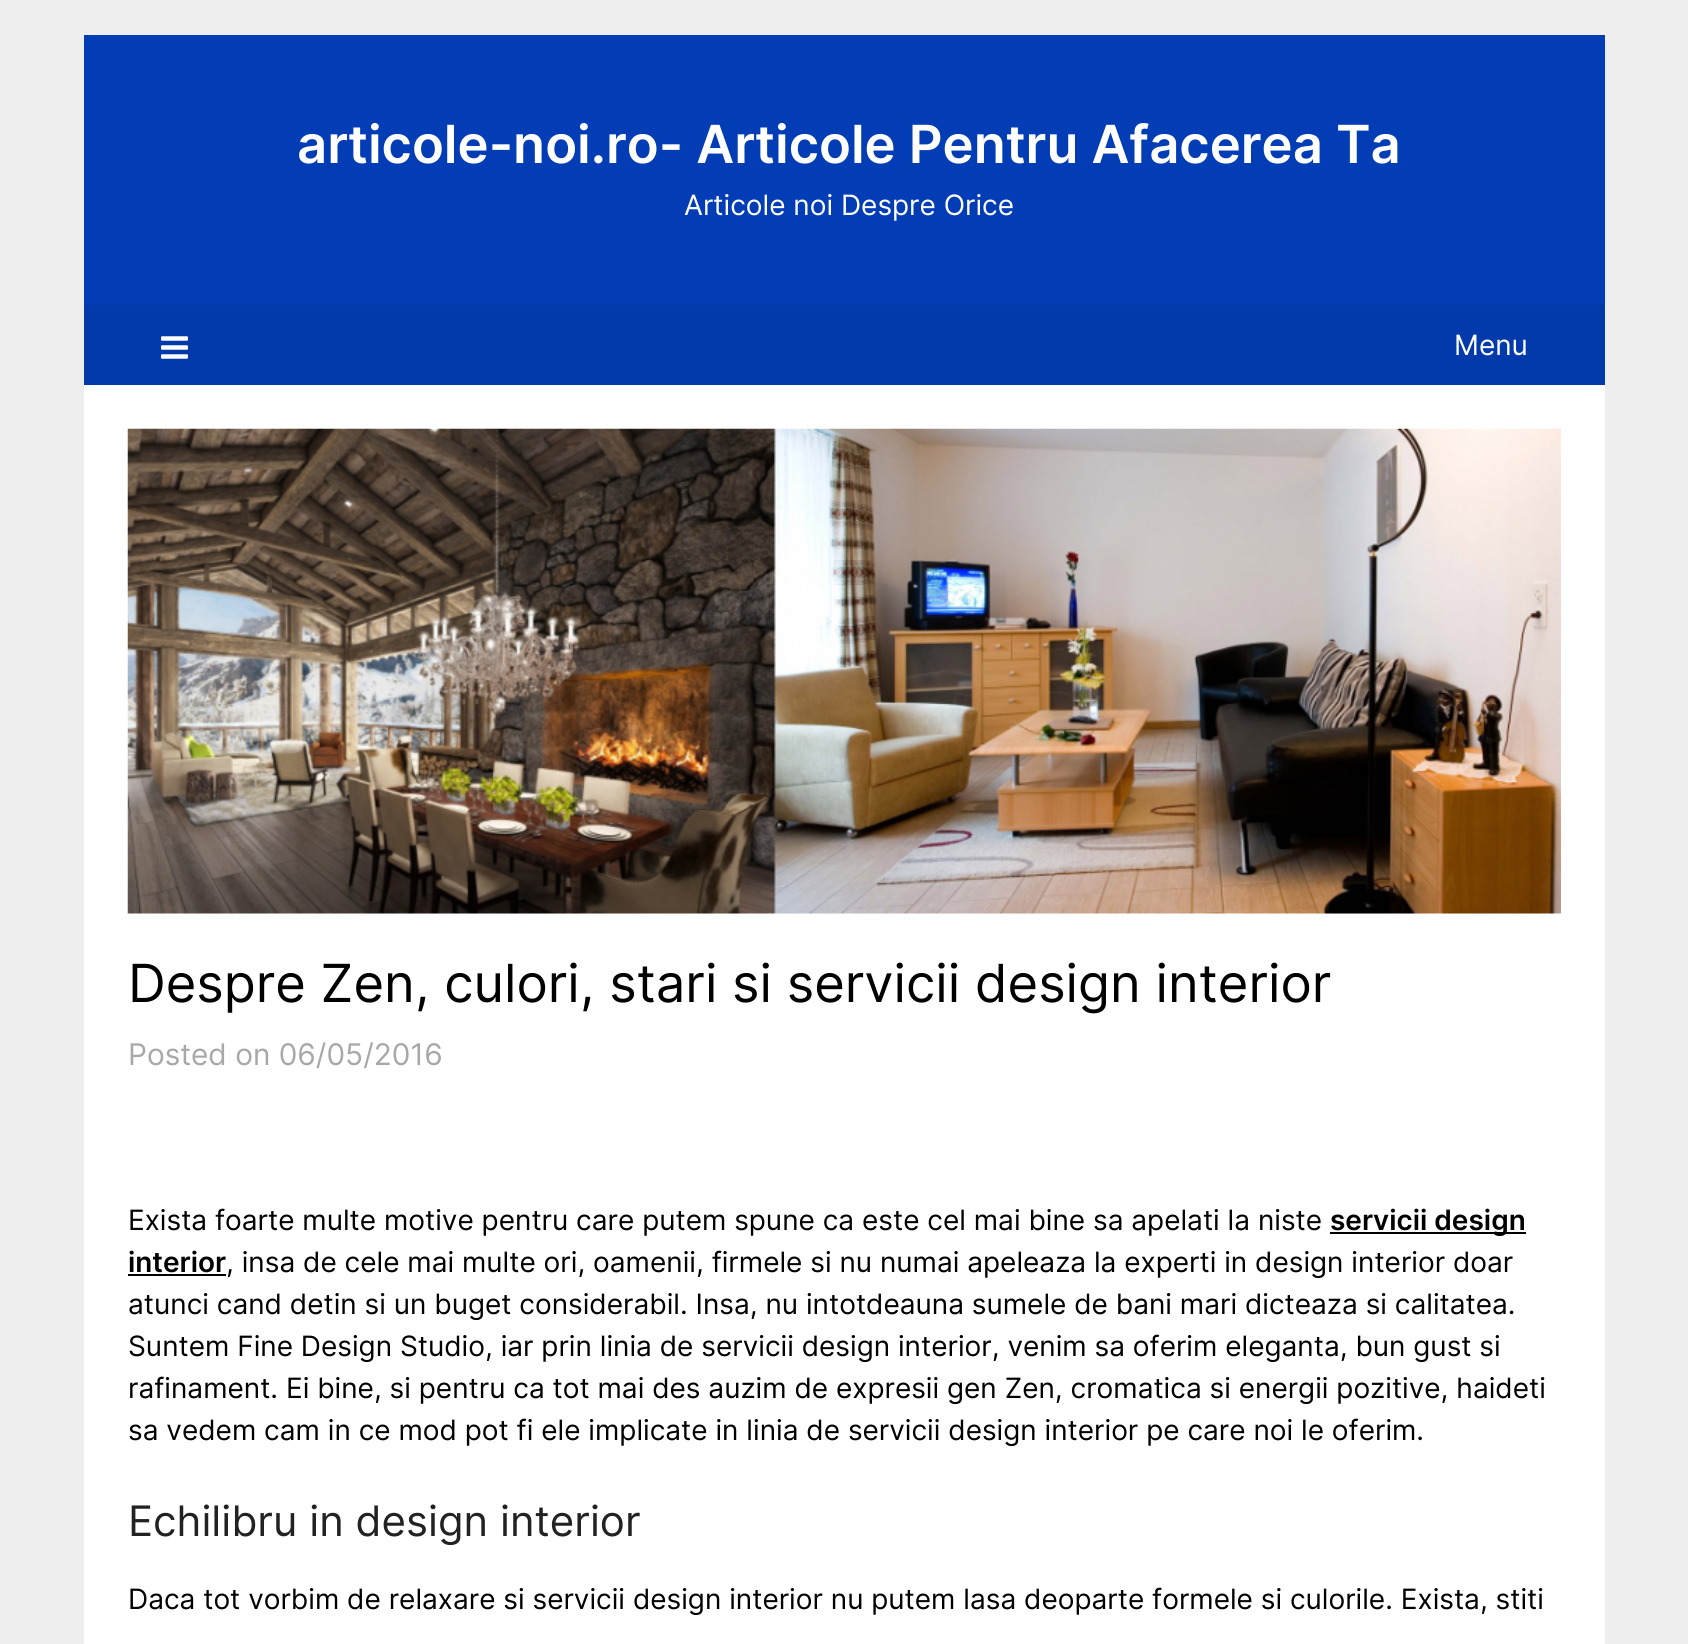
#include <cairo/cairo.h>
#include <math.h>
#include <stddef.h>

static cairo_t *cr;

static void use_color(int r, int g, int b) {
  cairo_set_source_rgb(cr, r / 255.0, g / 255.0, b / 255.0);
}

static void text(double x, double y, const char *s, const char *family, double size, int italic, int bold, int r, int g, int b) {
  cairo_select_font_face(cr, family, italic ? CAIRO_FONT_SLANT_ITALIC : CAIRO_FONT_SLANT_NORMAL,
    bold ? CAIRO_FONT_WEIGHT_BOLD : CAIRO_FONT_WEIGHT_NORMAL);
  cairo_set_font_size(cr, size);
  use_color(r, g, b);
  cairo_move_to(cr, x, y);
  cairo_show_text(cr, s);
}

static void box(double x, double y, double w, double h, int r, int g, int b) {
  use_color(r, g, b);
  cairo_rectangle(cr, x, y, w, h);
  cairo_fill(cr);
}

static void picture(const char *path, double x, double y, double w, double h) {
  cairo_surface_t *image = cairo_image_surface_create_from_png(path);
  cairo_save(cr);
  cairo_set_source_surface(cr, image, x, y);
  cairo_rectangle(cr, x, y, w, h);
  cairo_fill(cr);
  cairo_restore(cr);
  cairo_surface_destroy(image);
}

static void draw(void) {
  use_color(238, 238, 238);
  cairo_paint(cr);
  box(84, 35, 1521, 270, 2, 61, 182);
  box(84, 305, 1521, 80, 2, 57, 171);
  picture("img_01.png", 161, 336, 27, 23);
  box(84, 385, 1521, 1259, 255, 255, 255);
  picture("img_02.png", 127, 428, 1434, 486);
  box(1330, 1232, 196, 2, 0, 0, 0);
  box(128, 1274, 98, 2, 0, 0, 0);
  text(297, 163, "articole-noi.ro- Articole Pentru Afacerea Ta", "Inter SemiBold", 52.5, 0, 0, 255, 255, 255);
  text(684, 215, "Articole noi Despre Orice", "Inter", 28, 0, 0, 255, 255, 255);
  text(1454, 355, "Menu", "Inter", 28, 0, 0, 255, 255, 255);
  text(128, 1002, "Despre Zen, culori, stari si servicii design interior", "Inter", 52.5, 0, 0, 0, 0, 0);
  text(128, 1065, "Posted on 06/05/2016", "Inter", 29.75, 0, 0, 168, 168, 168);
  text(128, 1230, "Exista foarte multe motive pentru care putem spune ca este cel mai bine sa apelati la niste", "Inter", 28, 0, 0, 0, 0, 0);
  text(1330, 1230, "servicii design", "Inter SemiBold", 28, 0, 0, 0, 0, 0);
  text(128, 1272, "interior", "Inter SemiBold", 28, 0, 0, 0, 0, 0);
  text(226, 1272, ", insa de cele mai multe ori, oamenii, firmele si nu numai apeleaza la experti in design interior doar", "Inter", 28, 0, 0, 0, 0, 0);
  text(128, 1314, "atunci cand detin si un buget considerabil. Insa, nu intotdeauna sumele de bani mari dicteaza si calitatea.", "Inter", 28, 0, 0, 0, 0, 0);
  text(128, 1356, "Suntem Fine Design Studio, iar prin linia de servicii design interior, venim sa oferim eleganta, bun gust si", "Inter", 28, 0, 0, 0, 0, 0);
  text(128, 1398, "rafinament. Ei bine, si pentru ca tot mai des auzim de expresii gen Zen, cromatica si energii pozitive, haideti", "Inter", 28, 0, 0, 0, 0, 0);
  text(128, 1440, "sa vedem cam in ce mod pot fi ele implicate in linia de servicii design interior pe care noi le oferim.", "Inter", 28, 0, 0, 0, 0, 0);
  text(128, 1536, "Echilibru in design interior", "Inter", 42, 0, 0, 34, 34, 34);
  text(128, 1609, "Daca tot vorbim de relaxare si servicii design interior nu putem lasa deoparte formele si culorile. Exista, stiti", "Inter", 28, 0, 0, 0, 0, 0);
}

int main(void) {
  cairo_surface_t *surface = cairo_image_surface_create(CAIRO_FORMAT_RGB24, 1688, 1644);
  cr = cairo_create(surface);
  cairo_font_options_t *options = cairo_font_options_create();
  cairo_font_options_set_hint_metrics(options, CAIRO_HINT_METRICS_OFF);
  cairo_font_options_set_hint_style(options, CAIRO_HINT_STYLE_NONE);
  cairo_set_font_options(cr, options);
  cairo_set_miter_limit(cr, 4);
  draw();
  cairo_surface_write_to_png(surface, "out.png");
  cairo_font_options_destroy(options);
  cairo_destroy(cr);
  cairo_surface_destroy(surface);
  return 0;
}
